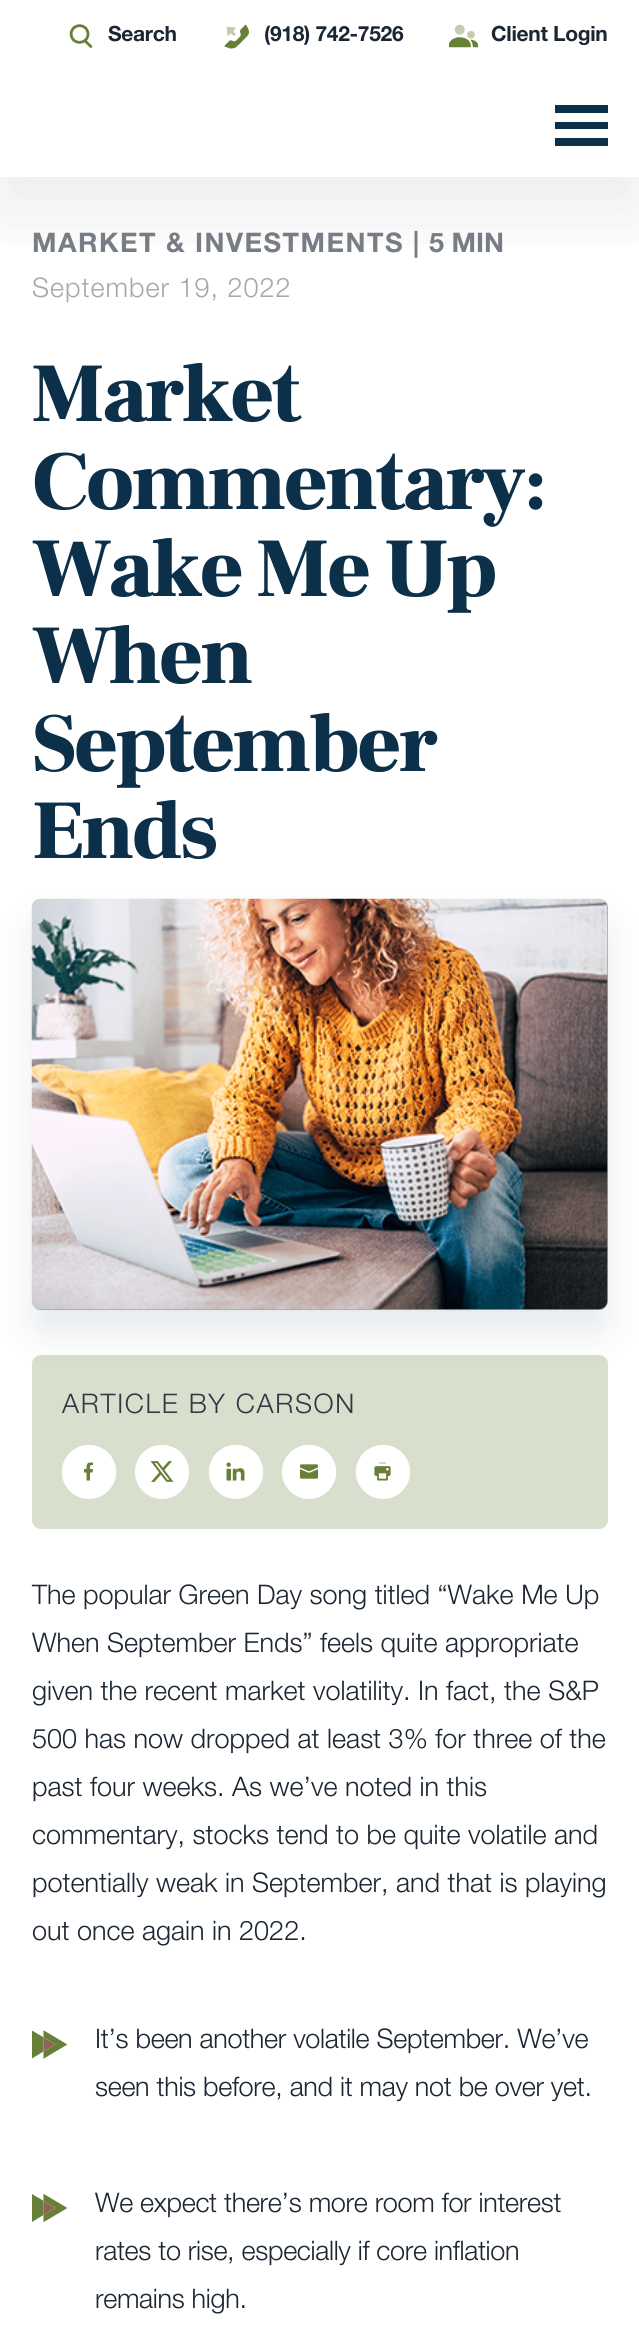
#include <cairo/cairo.h>
#include <math.h>
#include <stddef.h>

static cairo_t *cr;

static void use_color(int r, int g, int b) {
  cairo_set_source_rgb(cr, r / 255.0, g / 255.0, b / 255.0);
}

static void text(double x, double y, const char *s, const char *family, double size, int italic, int bold, int r, int g, int b) {
  cairo_select_font_face(cr, family, italic ? CAIRO_FONT_SLANT_ITALIC : CAIRO_FONT_SLANT_NORMAL,
    bold ? CAIRO_FONT_WEIGHT_BOLD : CAIRO_FONT_WEIGHT_NORMAL);
  cairo_set_font_size(cr, size);
  use_color(r, g, b);
  cairo_move_to(cr, x, y);
  cairo_show_text(cr, s);
}

static void spaced_text(double x, double y, const char *s, double letter, double word) {
  cairo_move_to(cr, x, y);
  while (*s) {
    char ch[5] = {0};
    int n = 0;
    do ch[n++] = *s++; while ((*s & 0xC0) == 0x80);
    cairo_show_text(cr, ch);
    cairo_rel_move_to(cr, letter + word * (*ch == ' '), 0);
  }
}

static void box(double x, double y, double w, double h, int r, int g, int b) {
  use_color(r, g, b);
  cairo_rectangle(cr, x, y, w, h);
  cairo_fill(cr);
}

static void round_rect(double x, double y, double w, double h, double r) {
  cairo_new_sub_path(cr);
  cairo_arc(cr, x + w - r, y + h - r, r, 0, M_PI / 2);
  cairo_arc(cr, x + r, y + h - r, r, M_PI / 2, M_PI);
  cairo_arc(cr, x + r, y + r, r, M_PI, 1.5 * M_PI);
  cairo_arc(cr, x + w - r, y + r, r, 1.5 * M_PI, 2 * M_PI);
  cairo_close_path(cr);
}

static void shadow(double x, double y, double w, double h, double r, double blur, double alpha) {
  cairo_push_group_with_content(cr, CAIRO_CONTENT_ALPHA);
  cairo_set_operator(cr, CAIRO_OPERATOR_SOURCE);
  for (int i = 15; i >= -15 && fmin(w, h) + blur * i / 3 > 0; i -= 2) {
    double e = blur * i / 6;
    cairo_set_source_rgba(cr, 0, 0, 0, alpha * erfc((i - 1) / 8.5) / 2);
    round_rect(x - e, y - e, w + 2 * e, h + 2 * e, fmax(0, fmin(r + e + blur * .6, fmin(w, h) / 2 + e)));
    cairo_fill(cr);
  }
  cairo_pattern_t *soft = cairo_pop_group(cr);
  cairo_mask(cr, soft);
  cairo_pattern_destroy(soft);
}

static void picture(const char *path, double x, double y, double w, double h) {
  cairo_surface_t *image = cairo_image_surface_create_from_png(path);
  cairo_save(cr);
  cairo_set_source_surface(cr, image, x, y);
  cairo_rectangle(cr, x, y, w, h);
  cairo_fill(cr);
  cairo_restore(cr);
  cairo_surface_destroy(image);
}

static void draw(void) {
  use_color(255, 255, 255);
  cairo_paint(cr);
  cairo_save(cr);
  cairo_rectangle(cr, 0, 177, 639, 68);
  cairo_clip(cr);
  use_color(27, 38, 50);
  shadow(0, 30, 639, 177, 0, 45, 0.1);
  cairo_restore(cr);
  picture("img_01.png", 69, 24, 24, 24);
  picture("img_02.png", 224, 24, 25, 25);
  picture("img_03.png", 449, 24, 30, 24);
  box(555, 105, 53, 8, 13, 48, 74);
  box(555, 122, 53, 7, 13, 48, 74);
  box(555, 138, 53, 8, 13, 48, 74);
  use_color(217, 223, 205);
  round_rect(32, 1355, 576, 174, 9);
  cairo_fill(cr);
  use_color(13, 48, 74);
  shadow(32, 923, 576, 411, 9, 18, 0.1);
  use_color(164, 164, 164);
  round_rect(32, 899, 576, 411, 9);
  cairo_fill(cr);
  picture("img_04.png", 31, 898, 577, 412);
  use_color(255, 255, 255);
  cairo_arc(cr, 89, 1472, 27, 0, 2 * M_PI);
  cairo_fill(cr);
  cairo_save(cr);
  round_rect(62, 1445, 54, 54, 27);
  cairo_clip(cr);
  cairo_new_path(cr);
  cairo_move_to(cr, 89, 1445);
  cairo_curve_to(cr, 104, 1445, 116, 1457, 116, 1472);
  cairo_line_to(cr, 116, 1471.5);
  cairo_curve_to(cr, 116, 1486, 104, 1498, 89.5, 1498);
  cairo_line_to(cr, 88.5, 1498);
  cairo_curve_to(cr, 74, 1498, 62, 1486, 62, 1471.5);
  cairo_line_to(cr, 62, 1472);
  cairo_curve_to(cr, 62, 1457, 74, 1445, 89, 1445);
  cairo_close_path(cr);
  cairo_fill(cr);
  cairo_restore(cr);
  use_color(103, 127, 55);
  cairo_set_fill_rule(cr, CAIRO_FILL_RULE_EVEN_ODD);
  cairo_new_path(cr);
  cairo_move_to(cr, 90, 1480.5);
  cairo_line_to(cr, 90, 1472.5);
  cairo_line_to(cr, 92.5, 1472.5);
  cairo_line_to(cr, 93, 1469);
  cairo_line_to(cr, 90, 1469);
  cairo_curve_to(cr, 90, 1466, 89.5, 1465, 93, 1465);
  cairo_line_to(cr, 93, 1462.5);
  cairo_line_to(cr, 90.5, 1462.5);
  cairo_curve_to(cr, 86.5, 1462.5, 86.5, 1465.5, 86.5, 1469);
  cairo_line_to(cr, 84, 1469);
  cairo_line_to(cr, 84, 1472.5);
  cairo_line_to(cr, 86.5, 1472.5);
  cairo_line_to(cr, 86.5, 1480.5);
  cairo_close_path(cr);
  cairo_fill(cr);
  use_color(255, 255, 255);
  cairo_arc(cr, 162, 1472, 27, 0, 2 * M_PI);
  cairo_fill(cr);
  picture("img_05.png", 135, 1445, 54, 42);
  cairo_arc(cr, 236, 1472, 27, 0, 2 * M_PI);
  cairo_fill(cr);
  picture("img_06.png", 209, 1445, 54, 42);
  cairo_arc(cr, 309, 1472, 27, 0, 2 * M_PI);
  cairo_fill(cr);
  picture("img_07.png", 282, 1445, 54, 42);
  cairo_arc(cr, 383, 1472, 27, 0, 2 * M_PI);
  cairo_fill(cr);
  picture("img_08.png", 356, 1445, 54, 42);
  picture("img_09.png", 32, 2030, 35, 29);
  picture("img_10.png", 32, 2193, 35, 30);
  cairo_select_font_face(cr, "Helvetica Neue", CAIRO_FONT_SLANT_NORMAL, CAIRO_FONT_WEIGHT_BOLD);
  cairo_set_font_size(cr, 21);
  use_color(27, 38, 50);
  spaced_text(108, 41, "Search", -0.3, 0);
  spaced_text(264, 41, "(918) 742-7526", -0.3, 0);
  spaced_text(491, 41, "Client Login", -0.3, 0);
  cairo_set_font_size(cr, 27);
  use_color(118, 125, 132);
  spaced_text(32, 252, "MARKET & INVESTMENTS |", 1.5, 0);
  text(429, 252, "5 MIN", "Helvetica Neue", 27, 0, 1, 118, 125, 132);
  cairo_select_font_face(cr, "Helvetica Neue Light", CAIRO_FONT_SLANT_NORMAL, CAIRO_FONT_WEIGHT_NORMAL);
  use_color(164, 168, 173);
  spaced_text(32, 297, "September 19, 2022", 1, 0);
  cairo_select_font_face(cr, "Frank Ruhl Libre Black", CAIRO_FONT_SLANT_NORMAL, CAIRO_FONT_WEIGHT_NORMAL);
  cairo_set_font_size(cr, 84);
  use_color(13, 48, 74);
  spaced_text(32, 421, "Market", -2.4, 0);
  spaced_text(32, 509, "Commentary:", -2.4, 0);
  spaced_text(32, 596, "Wake Me Up", -2.4, 0);
  spaced_text(32, 683, "When", -2.4, 0);
  spaced_text(32, 771, "September", -2.4, 0);
  spaced_text(32, 858, "Ends", -2.4, 0);
  cairo_select_font_face(cr, "Helvetica Neue Light", CAIRO_FONT_SLANT_NORMAL, CAIRO_FONT_WEIGHT_NORMAL);
  cairo_set_font_size(cr, 27);
  use_color(46, 57, 66);
  spaced_text(62, 1413, "ARTICLE BY CARSON", 1.7, 0);
  text(32, 1604, "The popular Green Day song titled “Wake Me Up", "Helvetica Neue Light", 27, 0, 0, 27, 38, 50);
  text(32, 1652, "When September Ends” feels quite appropriate", "Helvetica Neue Light", 27, 0, 0, 27, 38, 50);
  text(32, 1700, "given the recent market volatility. In fact, the S&P", "Helvetica Neue Light", 27, 0, 0, 27, 38, 50);
  text(32, 1748, "500 has now dropped at least 3% for three of the", "Helvetica Neue Light", 27, 0, 0, 27, 38, 50);
  text(32, 1796, "past four weeks. As we’ve noted in this", "Helvetica Neue Light", 27, 0, 0, 27, 38, 50);
  text(32, 1844, "commentary, stocks tend to be quite volatile and", "Helvetica Neue Light", 27, 0, 0, 27, 38, 50);
  text(32, 1892, "potentially weak in September, and that is playing", "Helvetica Neue Light", 27, 0, 0, 27, 38, 50);
  text(32, 1940, "out once again in 2022.", "Helvetica Neue Light", 27, 0, 0, 27, 38, 50);
  spaced_text(95, 2048, "It’s been another volatile September. We’ve", -0.3, 0);
  spaced_text(95, 2096, "seen this before, and it may not be over yet.", -0.3, 0);
  spaced_text(95, 2212, "We expect there’s more room for interest", -0.3, 0);
  spaced_text(95, 2260, "rates to rise, especially if core inflation", -0.3, 0);
  spaced_text(95, 2308, "remains high.", -0.3, 0);
}

int main(void) {
  cairo_surface_t *surface = cairo_image_surface_create(CAIRO_FORMAT_RGB24, 639, 2326);
  cr = cairo_create(surface);
  cairo_font_options_t *options = cairo_font_options_create();
  cairo_font_options_set_hint_metrics(options, CAIRO_HINT_METRICS_OFF);
  cairo_font_options_set_hint_style(options, CAIRO_HINT_STYLE_NONE);
  cairo_set_font_options(cr, options);
  cairo_set_miter_limit(cr, 4);
  draw();
  cairo_surface_write_to_png(surface, "out.png");
  cairo_font_options_destroy(options);
  cairo_destroy(cr);
  cairo_surface_destroy(surface);
  return 0;
}
